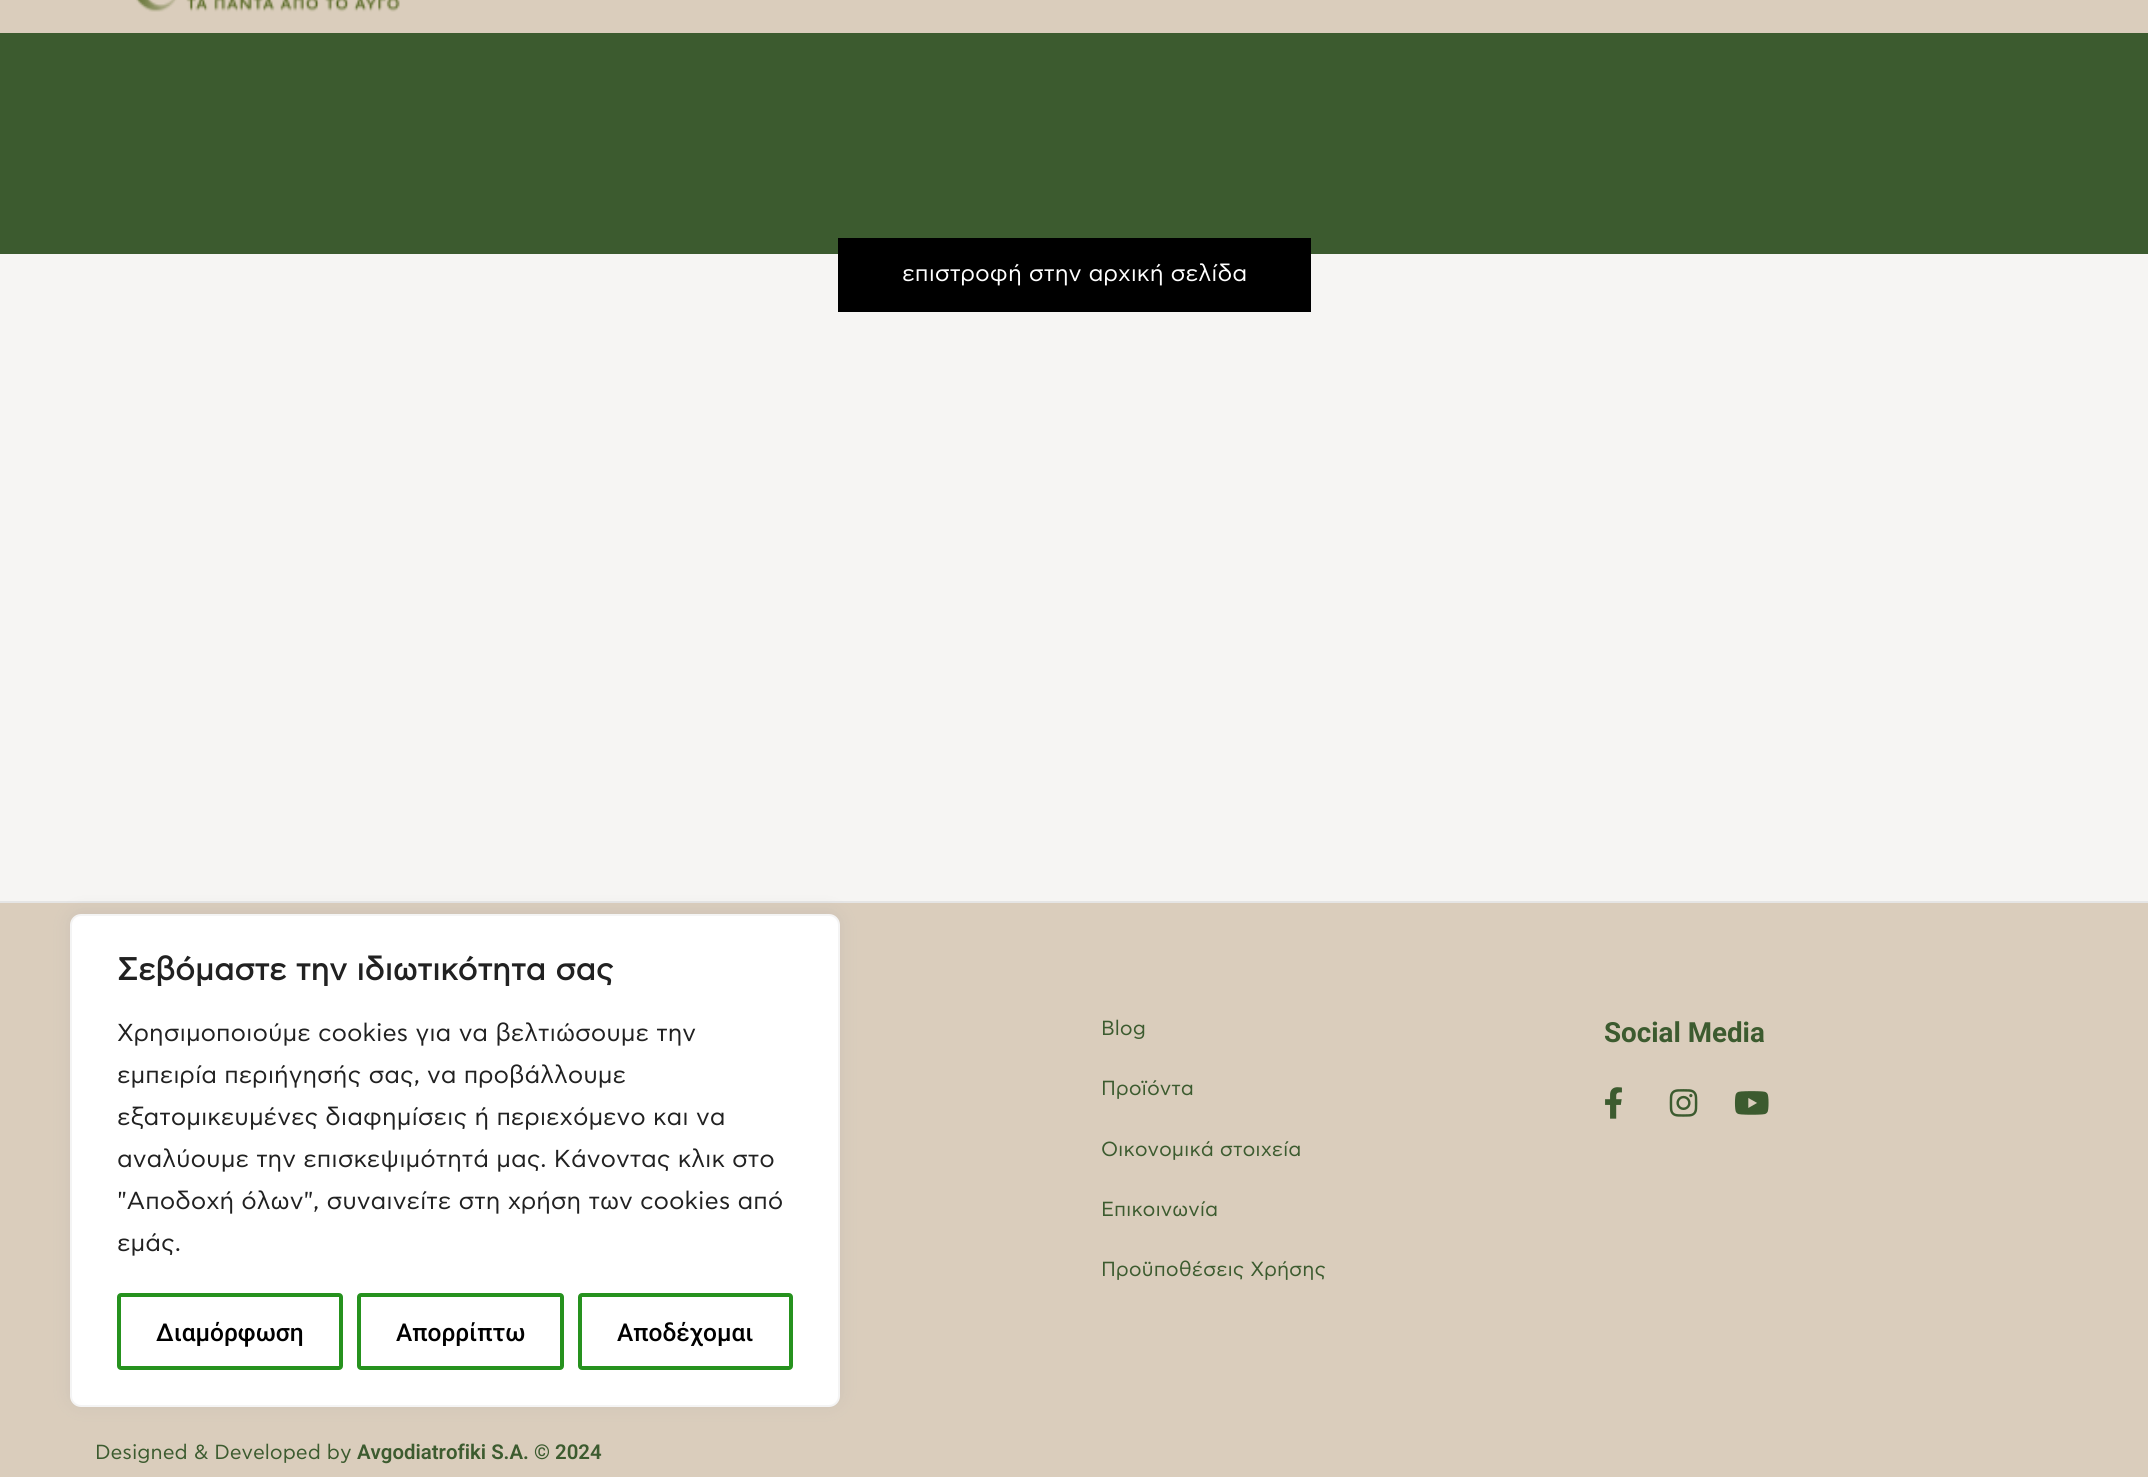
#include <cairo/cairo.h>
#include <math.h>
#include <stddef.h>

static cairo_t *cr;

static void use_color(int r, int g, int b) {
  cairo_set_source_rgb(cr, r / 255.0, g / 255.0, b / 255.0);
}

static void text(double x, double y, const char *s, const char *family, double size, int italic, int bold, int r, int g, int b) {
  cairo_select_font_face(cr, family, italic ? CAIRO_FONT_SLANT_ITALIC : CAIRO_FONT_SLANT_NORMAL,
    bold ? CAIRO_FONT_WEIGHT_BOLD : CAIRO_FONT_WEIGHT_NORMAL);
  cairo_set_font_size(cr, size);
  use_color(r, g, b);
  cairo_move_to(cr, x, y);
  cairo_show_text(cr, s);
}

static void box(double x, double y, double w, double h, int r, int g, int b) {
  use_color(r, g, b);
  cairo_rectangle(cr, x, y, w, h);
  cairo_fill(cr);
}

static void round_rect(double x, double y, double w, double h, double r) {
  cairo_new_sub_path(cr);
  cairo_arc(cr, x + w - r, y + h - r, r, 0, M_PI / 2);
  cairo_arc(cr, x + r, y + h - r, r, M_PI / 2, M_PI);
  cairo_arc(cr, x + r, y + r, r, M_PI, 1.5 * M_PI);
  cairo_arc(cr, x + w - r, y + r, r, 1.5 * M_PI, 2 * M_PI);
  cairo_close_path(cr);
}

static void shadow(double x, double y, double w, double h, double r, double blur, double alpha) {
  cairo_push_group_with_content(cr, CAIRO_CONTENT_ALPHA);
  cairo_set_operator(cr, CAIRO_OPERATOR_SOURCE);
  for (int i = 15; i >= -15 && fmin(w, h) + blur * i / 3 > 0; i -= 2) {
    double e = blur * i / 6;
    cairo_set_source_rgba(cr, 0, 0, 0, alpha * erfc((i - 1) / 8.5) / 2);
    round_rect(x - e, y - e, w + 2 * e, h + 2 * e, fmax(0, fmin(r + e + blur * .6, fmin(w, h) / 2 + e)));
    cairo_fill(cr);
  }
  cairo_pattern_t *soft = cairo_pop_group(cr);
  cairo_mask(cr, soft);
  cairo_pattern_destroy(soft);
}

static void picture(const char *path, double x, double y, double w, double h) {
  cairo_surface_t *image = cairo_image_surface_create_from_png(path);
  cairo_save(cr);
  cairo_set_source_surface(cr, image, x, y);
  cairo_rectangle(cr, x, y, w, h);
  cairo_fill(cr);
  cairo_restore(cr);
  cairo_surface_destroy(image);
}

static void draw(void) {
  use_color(246, 245, 243);
  cairo_paint(cr);
  box(0, 0, 2148, 33, 218, 205, 188);
  picture("img_01.png", 136, 0, 264, 12);
  box(0, 33, 2148, 221, 60, 91, 47);
  box(838, 238, 473, 74, 0, 0, 0);
  box(0, 903, 2148, 574, 218, 205, 188);
  box(0, 901, 2148, 2, 229, 229, 229);
  picture("img_02.png", 1605, 1087, 17, 32);
  picture("img_03.png", 1669, 1089, 29, 28);
  picture("img_04.png", 1734, 1091, 35, 24);
  use_color(172, 171, 171);
  shadow(70, 912, 770, 493, 11, 9, 0.3);
  use_color(255, 255, 255);
  round_rect(71, 915, 768, 491, 10);
  cairo_fill_preserve(cr);
  use_color(244, 244, 244);
  cairo_stroke(cr);
  round_rect(119, 1295, 222, 73, 2);
  use_color(38, 146, 30);
  cairo_set_line_width(cr, 4);
  cairo_stroke(cr);
  round_rect(359, 1295, 203, 73, 2);
  cairo_stroke(cr);
  round_rect(580, 1295, 211, 73, 2);
  cairo_stroke(cr);
  text(902, 281, "επιστροφή στην αρχική σελίδα", "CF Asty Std", 23.3, 0, 0, 255, 255, 255);
  text(1101, 1035, "Blog", "CF Asty Std", 20.4, 0, 0, 60, 91, 47);
  text(1101, 1095, "Προϊόντα", "CF Asty Std", 20.4, 0, 0, 60, 91, 47);
  text(1101, 1156, "Οικονομικά στοιχεία", "CF Asty Std", 20.4, 0, 0, 60, 91, 47);
  text(1101, 1216, "Επικοινωνία", "CF Asty Std", 20.4, 0, 0, 60, 91, 47);
  text(1101, 1276, "Προϋποθέσεις Χρήσης", "CF Asty Std", 20.4, 0, 0, 60, 91, 47);
  text(1604, 1042, "Social Media", "Roboto", 27.75, 0, 1, 60, 91, 47);
  text(95, 1459, "Designed & Developed by", "CF Asty Std", 20.4, 0, 0, 60, 91, 47);
  text(357, 1459, "Avgodiatrofiki S.A. © 2024", "Roboto SemiBold", 20.4, 0, 0, 60, 91, 47);
  text(117, 980, "Σεβόμαστε την ιδιωτικότητα σας", "CF Asty Std", 31.5, 0, 1, 33, 33, 33);
  text(117, 1041, "Χρησιμοποιούμε cookies για να βελτιώσουμε την", "CF Asty Std", 24.5, 0, 0, 33, 33, 33);
  text(117, 1083, "εμπειρία περιήγησής σας, να προβάλλουμε", "CF Asty Std", 24.5, 0, 0, 33, 33, 33);
  text(117, 1125, "εξατομικευμένες διαφημίσεις ή περιεχόμενο και να", "CF Asty Std", 24.5, 0, 0, 33, 33, 33);
  text(117, 1167, "αναλύουμε την επισκεψιμότητά μας. Κάνοντας κλικ στο", "CF Asty Std", 24.5, 0, 0, 33, 33, 33);
  text(117, 1209, "\"Αποδοχή όλων\", συναινείτε στη χρήση των cookies από", "CF Asty Std", 24.5, 0, 0, 33, 33, 33);
  text(117, 1251, "εμάς.", "CF Asty Std", 24.5, 0, 0, 33, 33, 33);
  text(156, 1341, "Διαμόρφωση", "Roboto Medium", 24.5, 0, 0, 0, 0, 0);
  text(396, 1341, "Απορρίπτω", "Roboto Medium", 24.5, 0, 0, 0, 0, 0);
  text(617, 1341, "Αποδέχομαι", "Roboto Medium", 24.5, 0, 0, 0, 0, 0);
}

int main(void) {
  cairo_surface_t *surface = cairo_image_surface_create(CAIRO_FORMAT_RGB24, 2148, 1477);
  cr = cairo_create(surface);
  cairo_font_options_t *options = cairo_font_options_create();
  cairo_font_options_set_hint_metrics(options, CAIRO_HINT_METRICS_OFF);
  cairo_font_options_set_hint_style(options, CAIRO_HINT_STYLE_NONE);
  cairo_set_font_options(cr, options);
  cairo_set_miter_limit(cr, 4);
  draw();
  cairo_surface_write_to_png(surface, "out.png");
  cairo_font_options_destroy(options);
  cairo_destroy(cr);
  cairo_surface_destroy(surface);
  return 0;
}
